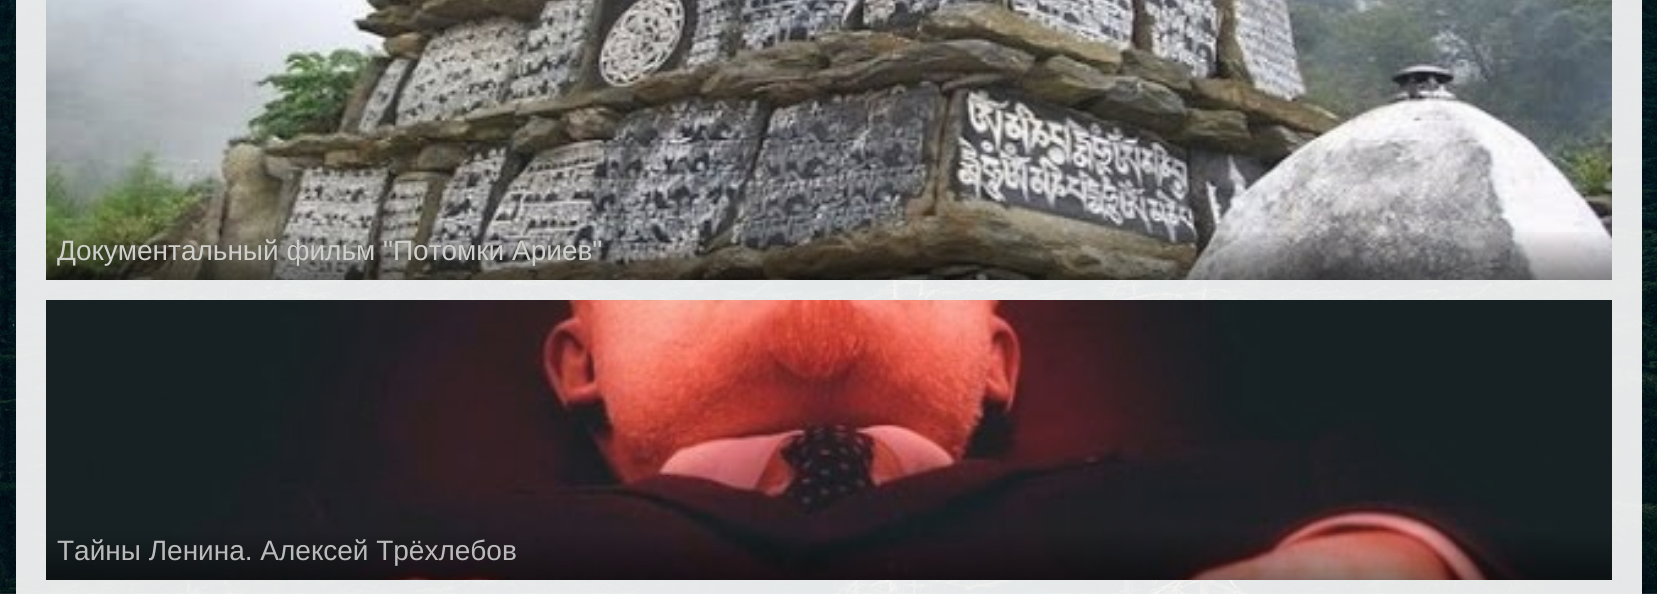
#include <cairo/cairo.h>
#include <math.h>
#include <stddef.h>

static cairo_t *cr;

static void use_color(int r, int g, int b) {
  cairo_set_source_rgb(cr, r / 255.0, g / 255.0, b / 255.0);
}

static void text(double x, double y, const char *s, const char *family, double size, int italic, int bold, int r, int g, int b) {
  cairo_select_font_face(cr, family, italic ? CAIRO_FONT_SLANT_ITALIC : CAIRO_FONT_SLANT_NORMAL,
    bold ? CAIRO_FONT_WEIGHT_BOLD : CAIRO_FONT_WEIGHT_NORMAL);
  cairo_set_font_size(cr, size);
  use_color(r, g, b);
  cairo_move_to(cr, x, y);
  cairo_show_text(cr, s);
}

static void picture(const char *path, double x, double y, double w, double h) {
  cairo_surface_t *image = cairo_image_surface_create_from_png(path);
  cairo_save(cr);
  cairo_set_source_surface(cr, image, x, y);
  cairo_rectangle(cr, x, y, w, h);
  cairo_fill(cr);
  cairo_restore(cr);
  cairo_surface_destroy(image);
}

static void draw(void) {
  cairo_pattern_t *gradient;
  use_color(255, 255, 255);
  cairo_paint(cr);
  picture("img_01.png", 0, 0, 1657, 594);
  picture("img_02.png", 46, 0, 1566, 280);
  gradient = cairo_pattern_create_linear(829, 230, 829, 280);
  cairo_pattern_add_color_stop_rgba(gradient, 0, 0, 0, 0, 0);
  cairo_pattern_add_color_stop_rgba(gradient, 1, 0, 0, 0, 0.47);
  cairo_set_source(cr, gradient);
  cairo_pattern_destroy(gradient);
  cairo_rectangle(cr, 46, 232, 1566, 48);
  cairo_fill(cr);
  picture("img_03.png", 46, 300, 1566, 280);
  gradient = cairo_pattern_create_linear(829, 530, 829, 580);
  cairo_pattern_add_color_stop_rgba(gradient, 0, 0, 0, 0, 0);
  cairo_pattern_add_color_stop_rgba(gradient, 1, 0, 0, 0, 0.47);
  cairo_set_source(cr, gradient);
  cairo_pattern_destroy(gradient);
  cairo_rectangle(cr, 46, 532, 1566, 48);
  cairo_fill(cr);
  text(57, 260, "Документальный фильм \"Потомки Ариев\"", "Liberation Sans", 28, 0, 0, 206, 206, 203);
  text(57, 560, "Тайны Ленина. Алексей Трёхлебов", "Liberation Sans", 28, 0, 0, 186, 186, 187);
}

int main(void) {
  cairo_surface_t *surface = cairo_image_surface_create(CAIRO_FORMAT_RGB24, 1657, 594);
  cr = cairo_create(surface);
  cairo_font_options_t *options = cairo_font_options_create();
  cairo_font_options_set_hint_metrics(options, CAIRO_HINT_METRICS_OFF);
  cairo_font_options_set_hint_style(options, CAIRO_HINT_STYLE_NONE);
  cairo_set_font_options(cr, options);
  cairo_set_miter_limit(cr, 4);
  draw();
  cairo_surface_write_to_png(surface, "out.png");
  cairo_font_options_destroy(options);
  cairo_destroy(cr);
  cairo_surface_destroy(surface);
  return 0;
}
